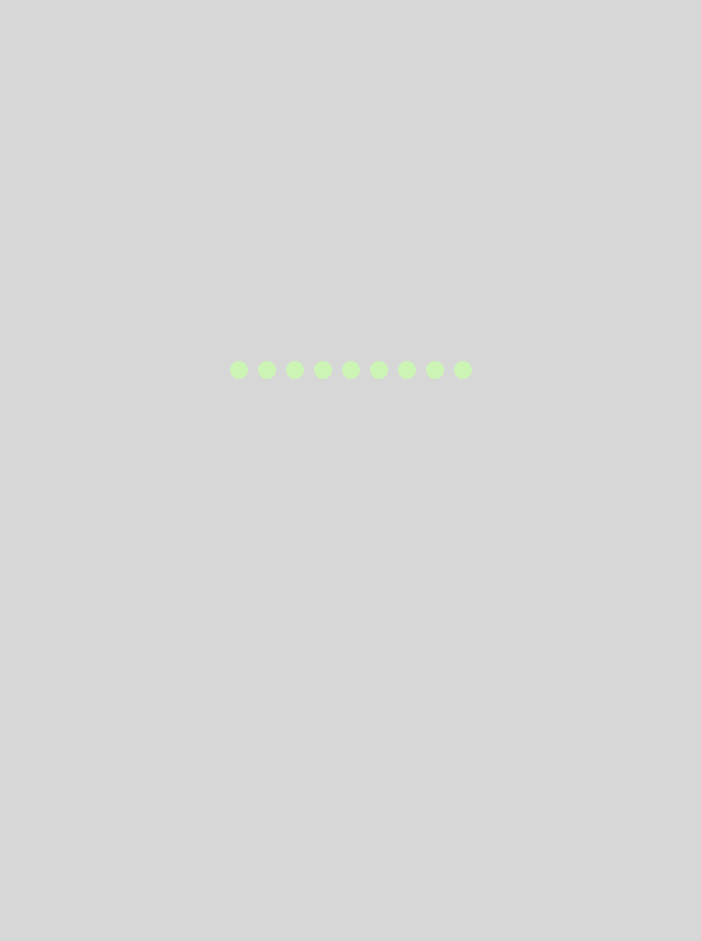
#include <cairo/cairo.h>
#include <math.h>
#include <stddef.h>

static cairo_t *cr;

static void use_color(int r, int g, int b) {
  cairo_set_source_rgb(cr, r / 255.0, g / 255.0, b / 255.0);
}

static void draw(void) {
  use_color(215, 215, 215);
  cairo_paint(cr);
  use_color(204, 244, 181);
  cairo_arc(cr, 239, 370, 9, 0, 2 * M_PI);
  cairo_fill(cr);
  cairo_arc(cr, 267, 370, 9, 0, 2 * M_PI);
  cairo_fill(cr);
  cairo_arc(cr, 295, 370, 9, 0, 2 * M_PI);
  cairo_fill(cr);
  cairo_arc(cr, 323, 370, 9, 0, 2 * M_PI);
  cairo_fill(cr);
  cairo_arc(cr, 351, 370, 9, 0, 2 * M_PI);
  cairo_fill(cr);
  cairo_arc(cr, 379, 370, 9, 0, 2 * M_PI);
  cairo_fill(cr);
  cairo_arc(cr, 407, 370, 9, 0, 2 * M_PI);
  cairo_fill(cr);
  cairo_arc(cr, 435, 370, 9, 0, 2 * M_PI);
  cairo_fill(cr);
  cairo_arc(cr, 463, 370, 9, 0, 2 * M_PI);
  cairo_fill(cr);
}

int main(void) {
  cairo_surface_t *surface = cairo_image_surface_create(CAIRO_FORMAT_RGB24, 701, 941);
  cr = cairo_create(surface);
  cairo_font_options_t *options = cairo_font_options_create();
  cairo_font_options_set_hint_metrics(options, CAIRO_HINT_METRICS_OFF);
  cairo_font_options_set_hint_style(options, CAIRO_HINT_STYLE_NONE);
  cairo_set_font_options(cr, options);
  cairo_set_miter_limit(cr, 4);
  draw();
  cairo_surface_write_to_png(surface, "out.png");
  cairo_font_options_destroy(options);
  cairo_destroy(cr);
  cairo_surface_destroy(surface);
  return 0;
}
